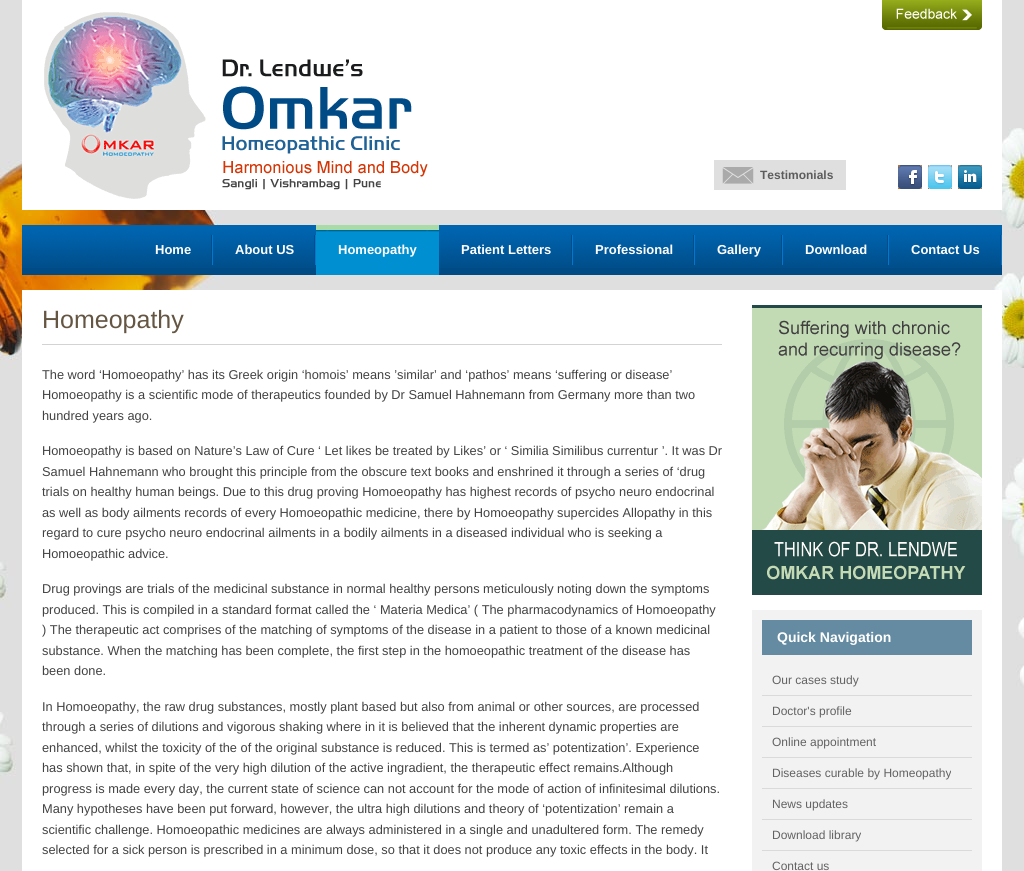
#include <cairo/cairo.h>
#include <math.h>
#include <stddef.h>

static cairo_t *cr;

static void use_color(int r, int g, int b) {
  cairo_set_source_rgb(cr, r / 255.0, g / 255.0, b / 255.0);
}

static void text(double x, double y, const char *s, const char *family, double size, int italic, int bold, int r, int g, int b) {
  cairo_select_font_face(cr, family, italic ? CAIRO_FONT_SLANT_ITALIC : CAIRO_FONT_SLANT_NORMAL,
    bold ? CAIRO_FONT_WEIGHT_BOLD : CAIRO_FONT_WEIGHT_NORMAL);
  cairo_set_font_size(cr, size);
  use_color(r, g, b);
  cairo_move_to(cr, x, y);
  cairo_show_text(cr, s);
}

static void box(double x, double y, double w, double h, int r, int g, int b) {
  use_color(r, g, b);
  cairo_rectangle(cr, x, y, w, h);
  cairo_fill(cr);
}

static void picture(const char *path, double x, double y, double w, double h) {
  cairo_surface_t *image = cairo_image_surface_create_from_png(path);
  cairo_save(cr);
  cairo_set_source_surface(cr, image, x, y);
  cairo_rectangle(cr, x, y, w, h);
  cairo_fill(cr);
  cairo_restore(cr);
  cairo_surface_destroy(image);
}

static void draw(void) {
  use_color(223, 223, 223);
  cairo_paint(cr);
  picture("img_01.png", 0, 102, 1024, 681);
  box(22, 0, 980, 210, 255, 255, 255);
  picture("img_02.png", 44, 12, 162, 187);
  picture("img_03.png", 222, 59, 206, 131);
  picture("img_04.png", 882, 0, 100, 30);
  box(714, 160, 132, 30, 223, 223, 223);
  picture("img_05.png", 722, 167, 32, 17);
  picture("img_06.png", 898, 165, 24, 24);
  picture("img_07.png", 928, 165, 24, 24);
  picture("img_08.png", 958, 165, 24, 24);
  box(22, 268, 980, 7, 0, 75, 134);
  picture("img_09.png", 22, 225, 980, 43);
  picture("img_10.png", 211, 235, 2, 30);
  picture("img_10.png", 314, 235, 2, 30);
  box(316, 232, 123, 43, 0, 143, 208);
  picture("img_11.png", 316, 225, 123, 7);
  picture("img_10.png", 571, 235, 2, 30);
  picture("img_10.png", 693, 235, 2, 30);
  picture("img_10.png", 781, 235, 2, 30);
  picture("img_10.png", 887, 235, 2, 30);
  picture("img_10.png", 1000, 235, 2, 30);
  box(22, 290, 980, 581, 255, 255, 255);
  box(42, 344, 680, 1, 211, 211, 211);
  picture("img_12.png", 752, 305, 230, 290);
  box(752, 610, 230, 261, 242, 242, 242);
  box(762, 620, 210, 35, 100, 139, 161);
  box(762, 695, 210, 1, 218, 218, 218);
  box(762, 726, 210, 1, 218, 218, 218);
  box(762, 757, 210, 1, 218, 218, 218);
  box(762, 788, 210, 1, 218, 218, 218);
  box(762, 819, 210, 1, 218, 218, 218);
  box(762, 850, 210, 1, 218, 218, 218);
  text(760, 179, "Testimonials", "Liberation Sans", 12, 0, 1, 92, 92, 92);
  text(155, 254, "Home", "Liberation Sans", 13, 0, 1, 255, 255, 255);
  text(235, 254, "About US", "Liberation Sans", 13, 0, 1, 255, 255, 255);
  text(338, 254, "Homeopathy", "Liberation Sans", 13, 0, 1, 255, 255, 255);
  text(461, 254, "Patient Letters", "Liberation Sans", 13, 0, 1, 255, 255, 255);
  text(595, 254, "Professional", "Liberation Sans", 13, 0, 1, 255, 255, 255);
  text(717, 254, "Gallery", "Liberation Sans", 13, 0, 1, 255, 255, 255);
  text(805, 254, "Download", "Liberation Sans", 13, 0, 1, 255, 255, 255);
  text(911, 254, "Contact Us", "Liberation Sans", 13, 0, 1, 255, 255, 255);
  text(42, 328, "Homeopathy", "Liberation Sans", 25, 0, 0, 101, 86, 67);
  text(42, 379, "The word ‘Homoeopathy’ has its Greek origin ‘homois’ means ’similar’ and ‘pathos’ means ‘suffering or disease’", "Liberation Sans", 12.8, 0, 0, 66, 66, 66);
  text(42, 399, "Homoeopathy is a scientific mode of therapeutics founded by Dr Samuel Hahnemann from Germany more than two", "Liberation Sans", 12.8, 0, 0, 66, 66, 66);
  text(42, 420, "hundred years ago.", "Liberation Sans", 12.8, 0, 0, 66, 66, 66);
  text(42, 455, "Homoeopathy is based on Nature’s Law of Cure ‘ Let likes be treated by Likes’ or ‘ Similia Similibus currentur ’. It was Dr", "Liberation Sans", 12.8, 0, 0, 66, 66, 66);
  text(42, 476, "Samuel Hahnemann who brought this principle from the obscure text books and enshrined it through a series of ‘drug", "Liberation Sans", 12.8, 0, 0, 66, 66, 66);
  text(42, 496, "trials on healthy human beings. Due to this drug proving Homoeopathy has highest records of psycho neuro endocrinal", "Liberation Sans", 12.8, 0, 0, 66, 66, 66);
  text(42, 517, "as well as body ailments records of every Homoeopathic medicine, there by Homoeopathy supercides Allopathy in this", "Liberation Sans", 12.8, 0, 0, 66, 66, 66);
  text(42, 537, "regard to cure psycho neuro endocrinal ailments in a bodily ailments in a diseased individual who is seeking a", "Liberation Sans", 12.8, 0, 0, 66, 66, 66);
  text(42, 558, "Homoeopathic advice.", "Liberation Sans", 12.8, 0, 0, 66, 66, 66);
  text(42, 593, "Drug provings are trials of the medicinal substance in normal healthy persons meticulously noting down the symptoms", "Liberation Sans", 12.8, 0, 0, 66, 66, 66);
  text(42, 614, "produced. This is compiled in a standard format called the ‘ Materia Medica’ ( The pharmacodynamics of Homoeopathy", "Liberation Sans", 12.8, 0, 0, 66, 66, 66);
  text(42, 634, ") The therapeutic act comprises of the matching of symptoms of the disease in a patient to those of a known medicinal", "Liberation Sans", 12.8, 0, 0, 66, 66, 66);
  text(42, 655, "substance. When the matching has been complete, the first step in the homoeopathic treatment of the disease has", "Liberation Sans", 12.8, 0, 0, 66, 66, 66);
  text(42, 675, "been done.", "Liberation Sans", 12.8, 0, 0, 66, 66, 66);
  text(42, 711, "In Homoeopathy, the raw drug substances, mostly plant based but also from animal or other sources, are processed", "Liberation Sans", 12.8, 0, 0, 66, 66, 66);
  text(42, 731, "through a series of dilutions and vigorous shaking where in it is believed that the inherent dynamic properties are", "Liberation Sans", 12.8, 0, 0, 66, 66, 66);
  text(42, 752, "enhanced, whilst the toxicity of the of the original substance is reduced. This is termed as’ potentization’. Experience", "Liberation Sans", 12.8, 0, 0, 66, 66, 66);
  text(42, 772, "has shown that, in spite of the very high dilution of the active ingradient, the therapeutic effect remains.Although", "Liberation Sans", 12.8, 0, 0, 66, 66, 66);
  text(42, 793, "progress is made every day, the current state of science can not account for the mode of action of infinitesimal dilutions.", "Liberation Sans", 12.8, 0, 0, 66, 66, 66);
  text(42, 813, "Many hypotheses have been put forward, however, the ultra high dilutions and theory of ‘potentization’ remain a", "Liberation Sans", 12.8, 0, 0, 66, 66, 66);
  text(42, 834, "scientific challenge. Homoeopathic medicines are always administered in a single and unadultered form. The remedy", "Liberation Sans", 12.8, 0, 0, 66, 66, 66);
  text(42, 854, "selected for a sick person is prescribed in a minimum dose, so that it does not produce any toxic effects in the body. It", "Liberation Sans", 12.8, 0, 0, 66, 66, 66);
  text(777, 642, "Quick Navigation", "Liberation Sans", 14, 0, 1, 255, 255, 255);
  text(772, 684, "Our cases study", "Liberation Sans", 12, 0, 0, 98, 98, 98);
  text(772, 715, "Doctor's profile", "Liberation Sans", 12, 0, 0, 98, 98, 98);
  text(772, 746, "Online appointment", "Liberation Sans", 12, 0, 0, 98, 98, 98);
  text(772, 777, "Diseases curable by Homeopathy", "Liberation Sans", 12, 0, 0, 98, 98, 98);
  text(772, 808, "News updates", "Liberation Sans", 12, 0, 0, 98, 98, 98);
  text(772, 839, "Download library", "Liberation Sans", 12, 0, 0, 98, 98, 98);
  text(772, 870, "Contact us", "Liberation Sans", 12, 0, 0, 98, 98, 98);
}

int main(void) {
  cairo_surface_t *surface = cairo_image_surface_create(CAIRO_FORMAT_RGB24, 1024, 871);
  cr = cairo_create(surface);
  cairo_font_options_t *options = cairo_font_options_create();
  cairo_font_options_set_hint_metrics(options, CAIRO_HINT_METRICS_OFF);
  cairo_font_options_set_hint_style(options, CAIRO_HINT_STYLE_NONE);
  cairo_set_font_options(cr, options);
  cairo_set_miter_limit(cr, 4);
  draw();
  cairo_surface_write_to_png(surface, "out.png");
  cairo_font_options_destroy(options);
  cairo_destroy(cr);
  cairo_surface_destroy(surface);
  return 0;
}
